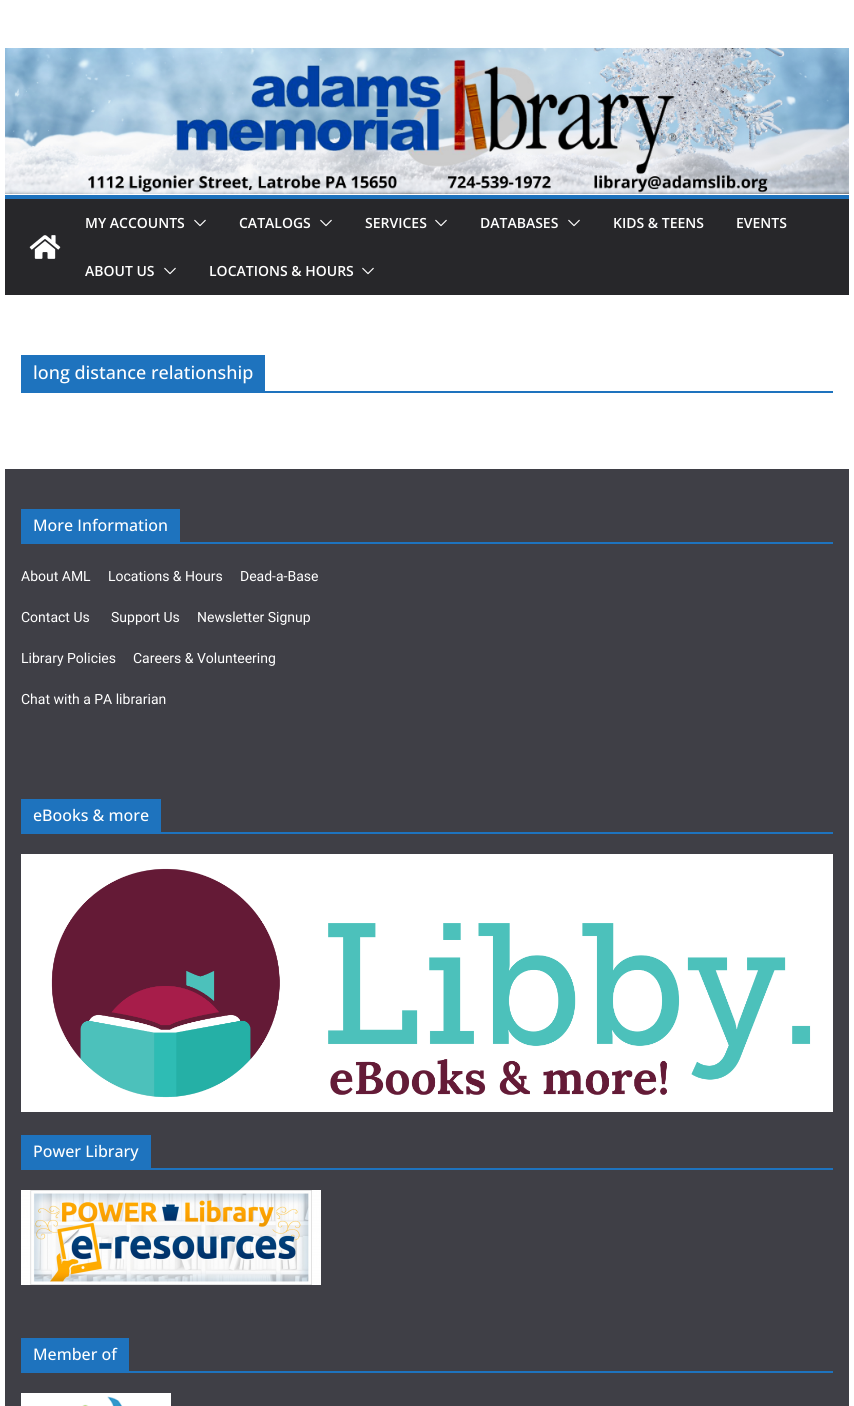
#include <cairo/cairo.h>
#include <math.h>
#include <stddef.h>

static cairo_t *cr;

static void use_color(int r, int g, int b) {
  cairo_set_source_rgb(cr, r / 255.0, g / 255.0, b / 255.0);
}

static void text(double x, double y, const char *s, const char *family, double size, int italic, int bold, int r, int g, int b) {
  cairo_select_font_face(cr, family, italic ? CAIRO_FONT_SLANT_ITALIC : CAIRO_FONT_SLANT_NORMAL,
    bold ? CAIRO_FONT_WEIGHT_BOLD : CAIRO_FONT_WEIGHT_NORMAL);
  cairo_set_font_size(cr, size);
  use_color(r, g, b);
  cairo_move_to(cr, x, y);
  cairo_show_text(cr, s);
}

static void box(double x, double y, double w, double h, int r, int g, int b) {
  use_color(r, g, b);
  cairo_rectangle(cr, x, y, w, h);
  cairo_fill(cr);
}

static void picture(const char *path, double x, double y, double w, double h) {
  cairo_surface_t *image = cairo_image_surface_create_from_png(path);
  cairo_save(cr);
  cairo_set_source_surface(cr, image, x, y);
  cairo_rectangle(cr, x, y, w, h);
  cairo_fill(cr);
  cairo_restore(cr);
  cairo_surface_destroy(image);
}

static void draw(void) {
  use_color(255, 255, 255);
  cairo_paint(cr);
  picture("img_01.png", 5, 48, 844, 146);
  box(5, 199, 844, 96, 39, 39, 42);
  box(5, 195, 844, 4, 30, 115, 190);
  picture("img_02.png", 29, 235, 32, 24);
  picture("img_03.png", 194, 219, 12, 8);
  picture("img_03.png", 320, 219, 12, 8);
  picture("img_03.png", 435, 219, 12, 8);
  picture("img_03.png", 568, 219, 12, 8);
  picture("img_03.png", 164, 267, 12, 8);
  picture("img_03.png", 362, 267, 12, 8);
  box(21, 391, 812, 2, 30, 115, 190);
  box(21, 355, 244, 36, 30, 115, 190);
  box(5, 469, 844, 937, 63, 63, 70);
  box(21, 542, 812, 2, 30, 115, 190);
  box(21, 509, 159, 33, 30, 115, 190);
  box(21, 832, 812, 2, 30, 115, 190);
  box(21, 799, 140, 33, 30, 115, 190);
  picture("img_04.png", 21, 854, 812, 258);
  box(21, 1168, 812, 2, 30, 115, 190);
  box(21, 1135, 130, 33, 30, 115, 190);
  picture("img_05.png", 21, 1190, 300, 95);
  box(21, 1371, 812, 2, 30, 115, 190);
  box(21, 1338, 108, 33, 30, 115, 190);
  picture("img_06.png", 21, 1393, 150, 13);
  text(85, 228, "MY ACCOUNTS", "Open Sans SemiBold", 14, 0, 0, 255, 255, 255);
  text(239, 228, "CATALOGS", "Open Sans SemiBold", 14, 0, 0, 255, 255, 255);
  text(365, 228, "SERVICES", "Open Sans SemiBold", 14, 0, 0, 255, 255, 255);
  text(480, 228, "DATABASES", "Open Sans SemiBold", 14, 0, 0, 255, 255, 255);
  text(613, 228, "KIDS & TEENS", "Open Sans SemiBold", 14, 0, 0, 255, 255, 255);
  text(736, 228, "EVENTS", "Open Sans SemiBold", 14, 0, 0, 255, 255, 255);
  text(85, 276, "ABOUT US", "Open Sans SemiBold", 14, 0, 0, 255, 255, 255);
  text(209, 276, "LOCATIONS & HOURS", "Open Sans SemiBold", 14, 0, 0, 255, 255, 255);
  text(33, 379, "long distance relationship", "Open Sans Medium", 18, 0, 0, 255, 255, 255);
  text(33, 531, "More Information", "Open Sans Medium", 16, 0, 0, 255, 255, 255);
  text(21, 581, "About AML", "Roboto", 14, 0, 0, 255, 255, 255);
  text(108, 581, "Locations & Hours", "Roboto", 14, 0, 0, 255, 255, 255);
  text(240, 581, "Dead-a-Base", "Roboto", 14, 0, 0, 255, 255, 255);
  text(21, 622, "Contact Us", "Roboto", 14, 0, 0, 255, 255, 255);
  text(111, 622, "Support Us", "Roboto", 14, 0, 0, 255, 255, 255);
  text(197, 622, "Newsletter Signup", "Roboto", 14, 0, 0, 255, 255, 255);
  text(21, 663, "Library Policies", "Roboto", 14, 0, 0, 255, 255, 255);
  text(133, 663, "Careers & Volunteering", "Roboto", 14, 0, 0, 255, 255, 255);
  text(21, 704, "Chat with a PA librarian", "Roboto", 14, 0, 0, 255, 255, 255);
  text(33, 821, "eBooks & more", "Open Sans Medium", 16, 0, 0, 255, 255, 255);
  text(33, 1157, "Power Library", "Open Sans Medium", 16, 0, 0, 255, 255, 255);
  text(33, 1360, "Member of", "Open Sans Medium", 16, 0, 0, 255, 255, 255);
}

int main(void) {
  cairo_surface_t *surface = cairo_image_surface_create(CAIRO_FORMAT_RGB24, 854, 1406);
  cr = cairo_create(surface);
  cairo_font_options_t *options = cairo_font_options_create();
  cairo_font_options_set_hint_metrics(options, CAIRO_HINT_METRICS_OFF);
  cairo_font_options_set_hint_style(options, CAIRO_HINT_STYLE_NONE);
  cairo_set_font_options(cr, options);
  cairo_set_miter_limit(cr, 4);
  draw();
  cairo_surface_write_to_png(surface, "out.png");
  cairo_font_options_destroy(options);
  cairo_destroy(cr);
  cairo_surface_destroy(surface);
  return 0;
}
